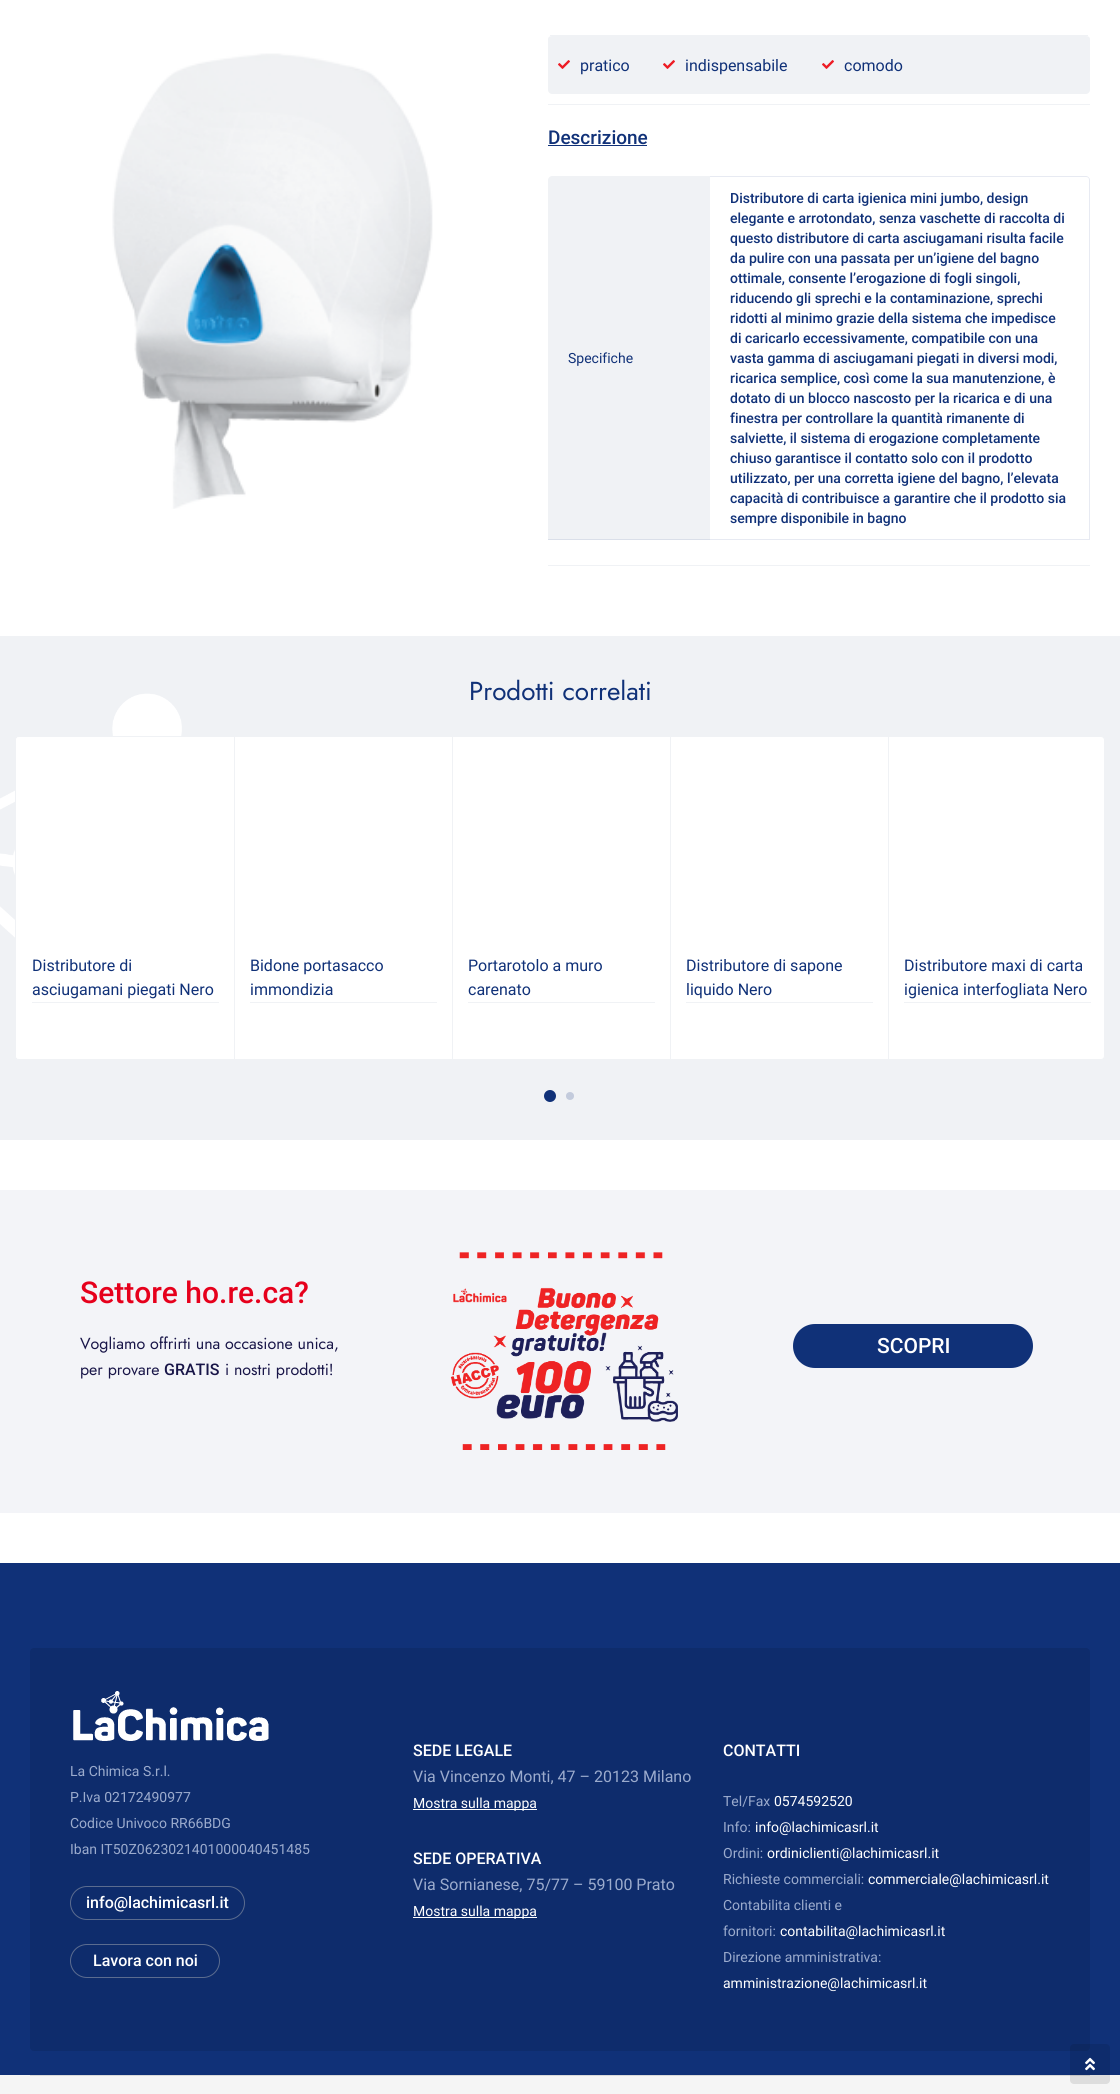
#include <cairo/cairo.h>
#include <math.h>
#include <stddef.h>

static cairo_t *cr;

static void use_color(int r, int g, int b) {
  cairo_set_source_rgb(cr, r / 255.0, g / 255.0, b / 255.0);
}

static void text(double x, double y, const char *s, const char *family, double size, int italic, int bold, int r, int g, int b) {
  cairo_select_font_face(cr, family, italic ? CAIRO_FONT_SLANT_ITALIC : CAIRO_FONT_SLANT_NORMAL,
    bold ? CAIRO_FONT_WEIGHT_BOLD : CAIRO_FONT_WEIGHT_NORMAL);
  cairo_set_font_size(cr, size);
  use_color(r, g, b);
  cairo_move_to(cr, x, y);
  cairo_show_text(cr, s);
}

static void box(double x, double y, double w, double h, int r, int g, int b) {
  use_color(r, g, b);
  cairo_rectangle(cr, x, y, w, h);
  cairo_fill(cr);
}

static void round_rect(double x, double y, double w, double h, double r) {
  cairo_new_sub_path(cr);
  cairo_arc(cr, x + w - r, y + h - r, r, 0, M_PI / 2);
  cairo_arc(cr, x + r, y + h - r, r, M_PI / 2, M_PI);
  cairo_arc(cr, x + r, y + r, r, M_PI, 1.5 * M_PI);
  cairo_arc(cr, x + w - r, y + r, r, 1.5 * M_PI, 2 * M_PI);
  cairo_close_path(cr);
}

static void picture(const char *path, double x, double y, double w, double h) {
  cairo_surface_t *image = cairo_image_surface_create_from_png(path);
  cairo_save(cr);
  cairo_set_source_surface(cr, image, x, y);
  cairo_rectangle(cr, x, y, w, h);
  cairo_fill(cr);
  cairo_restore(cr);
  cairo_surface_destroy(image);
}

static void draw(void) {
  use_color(255, 255, 255);
  cairo_paint(cr);
  picture("img_01.png", 112, 53, 321, 456);
  use_color(240, 242, 245);
  cairo_new_path(cr);
  cairo_move_to(cr, 552, 36);
  cairo_line_to(cr, 1086, 36);
  cairo_curve_to(cr, 1088, 36, 1090, 37, 1090, 39);
  cairo_line_to(cr, 1090, 90);
  cairo_curve_to(cr, 1090, 92, 1088, 94, 1086, 94);
  cairo_line_to(cr, 552, 94);
  cairo_curve_to(cr, 550, 94, 548, 92, 548, 90);
  cairo_line_to(cr, 548, 39);
  cairo_curve_to(cr, 548, 37, 550, 36, 552, 36);
  cairo_close_path(cr);
  cairo_fill(cr);
  box(550, 35, 538, 1, 240, 242, 245);
  picture("img_02.png", 558, 60, 12, 9);
  picture("img_02.png", 663, 60, 12, 9);
  picture("img_02.png", 822, 60, 12, 9);
  box(548, 104, 542, 1, 240, 242, 245);
  box(548, 145, 99, 1, 16, 49, 120);
  use_color(240, 242, 245);
  cairo_new_path(cr);
  cairo_move_to(cr, 552, 176);
  cairo_line_to(cr, 710, 176);
  cairo_line_to(cr, 710, 540);
  cairo_line_to(cr, 548, 540);
  cairo_line_to(cr, 548, 180);
  cairo_curve_to(cr, 548, 178, 550, 176, 552, 176);
  cairo_close_path(cr);
  cairo_fill(cr);
  box(548, 539, 162, 1, 218, 223, 233);
  use_color(231, 234, 242);
  cairo_set_fill_rule(cr, CAIRO_FILL_RULE_EVEN_ODD);
  cairo_new_path(cr);
  cairo_move_to(cr, 710, 176);
  cairo_line_to(cr, 1086, 176);
  cairo_curve_to(cr, 1088, 176, 1090, 178, 1090, 180);
  cairo_line_to(cr, 1090, 540);
  cairo_line_to(cr, 710, 540);
  cairo_close_path(cr);
  cairo_move_to(cr, 710, 177);
  cairo_line_to(cr, 1086, 177);
  cairo_curve_to(cr, 1088, 177, 1089, 178, 1089, 180);
  cairo_line_to(cr, 1089, 539);
  cairo_line_to(cr, 710, 539);
  cairo_close_path(cr);
  cairo_fill(cr);
  box(548, 565, 542, 1, 240, 242, 245);
  box(0, 636, 1120, 504, 240, 242, 245);
  picture("img_03.png", 0, 693, 182, 245);
  use_color(255, 255, 255);
  round_rect(15.5, 736.5, 1089, 323, 3.5);
  cairo_fill_preserve(cr);
  use_color(240, 242, 245);
  cairo_set_line_width(cr, 1);
  cairo_stroke(cr);
  cairo_save(cr);
  cairo_set_fill_rule(cr, CAIRO_FILL_RULE_WINDING);
  round_rect(16, 737, 1088, 322, 3);
  cairo_clip(cr);
  box(16, 737, 2, 322, 255, 255, 255);
  cairo_restore(cr);
  box(32, 1002, 187, 1, 240, 242, 245);
  box(234, 737, 1, 322, 240, 242, 245);
  box(250, 1002, 187, 1, 240, 242, 245);
  box(452, 737, 1, 322, 240, 242, 245);
  box(468, 1002, 187, 1, 240, 242, 245);
  box(670, 737, 1, 322, 240, 242, 245);
  box(686, 1002, 187, 1, 240, 242, 245);
  box(888, 737, 1, 322, 240, 242, 245);
  box(904, 1002, 187, 1, 240, 242, 245);
  use_color(16, 49, 120);
  cairo_arc(cr, 550, 1096, 6, 0, 2 * M_PI);
  cairo_fill(cr);
  use_color(195, 203, 220);
  cairo_arc(cr, 570, 1096, 4, 0, 2 * M_PI);
  cairo_fill(cr);
  box(0, 1190, 1120, 323, 243, 244, 248);
  picture("img_04.png", 450, 1252, 228, 198);
  use_color(16, 49, 120);
  round_rect(793, 1324, 240, 44, 22);
  cairo_fill(cr);
  box(0, 1563, 1120, 512, 16, 49, 120);
  use_color(14, 44, 108);
  round_rect(30, 1648, 1060, 403, 4);
  cairo_fill(cr);
  picture("img_05.png", 73, 1691, 196, 50);
  round_rect(70.5, 1886.5, 174, 33, 16.5);
  use_color(91, 108, 143);
  cairo_stroke(cr);
  round_rect(70.5, 1944.5, 149, 33, 16.5);
  cairo_stroke(cr);
  box(413, 1809, 124, 1, 255, 255, 255);
  box(413, 1917, 124, 1, 255, 255, 255);
  box(0, 2075, 1120, 19, 245, 245, 245);
  box(30, 2075, 1060, 1, 217, 217, 217);
  cairo_set_source_rgba(cr, 0, 0, 0, 0.1);
  round_rect(1070, 2044, 40, 40, 4);
  cairo_fill(cr);
  picture("img_06.png", 1085, 2057, 10, 14);
  text(580, 71, "pratico", "Roboto", 16, 0, 0, 16, 49, 120);
  text(685, 71, "indispensabile", "Roboto", 16, 0, 0, 16, 49, 120);
  text(844, 71, "comodo", "Roboto", 16, 0, 0, 16, 49, 120);
  text(548, 144, "Descrizione", "Roboto Medium", 19, 0, 0, 16, 49, 120);
  text(568, 363, "Specifiche", "Roboto", 14, 0, 0, 16, 49, 120);
  text(730, 203, "Distributore di carta igienica mini jumbo, design", "Roboto Medium", 14, 0, 0, 16, 49, 120);
  text(730, 223, "elegante e arrotondato, senza vaschette di raccolta di", "Roboto Medium", 14, 0, 0, 16, 49, 120);
  text(730, 243, "questo distributore di carta asciugamani risulta facile", "Roboto Medium", 14, 0, 0, 16, 49, 120);
  text(730, 263, "da pulire con una passata per un’igiene del bagno", "Roboto Medium", 14, 0, 0, 16, 49, 120);
  text(730, 283, "ottimale, consente l’erogazione di fogli singoli,", "Roboto Medium", 14, 0, 0, 16, 49, 120);
  text(730, 303, "riducendo gli sprechi e la contaminazione, sprechi", "Roboto Medium", 14, 0, 0, 16, 49, 120);
  text(730, 323, "ridotti al minimo grazie della sistema che impedisce", "Roboto Medium", 14, 0, 0, 16, 49, 120);
  text(730, 343, "di caricarlo eccessivamente, compatibile con una", "Roboto Medium", 14, 0, 0, 16, 49, 120);
  text(730, 363, "vasta gamma di asciugamani piegati in diversi modi,", "Roboto Medium", 14, 0, 0, 16, 49, 120);
  text(730, 383, "ricarica semplice, così come la sua manutenzione, è", "Roboto Medium", 14, 0, 0, 16, 49, 120);
  text(730, 403, "dotato di un blocco nascosto per la ricarica e di una", "Roboto Medium", 14, 0, 0, 16, 49, 120);
  text(730, 423, "finestra per controllare la quantità rimanente di", "Roboto Medium", 14, 0, 0, 16, 49, 120);
  text(730, 443, "salviette, il sistema di erogazione completamente", "Roboto Medium", 14, 0, 0, 16, 49, 120);
  text(730, 463, "chiuso garantisce il contatto solo con il prodotto", "Roboto Medium", 14, 0, 0, 16, 49, 120);
  text(730, 483, "utilizzato, per una corretta igiene del bagno, l’elevata", "Roboto Medium", 14, 0, 0, 16, 49, 120);
  text(730, 503, "capacità di contribuisce a garantire che il prodotto sia", "Roboto Medium", 14, 0, 0, 16, 49, 120);
  text(730, 523, "sempre disponibile in bagno", "Roboto Medium", 14, 0, 0, 16, 49, 120);
  text(469, 700, "Prodotti correlati", "Jost", 26, 0, 0, 16, 49, 120);
  text(32, 971, "Distributore di", "Roboto", 16, 0, 0, 16, 49, 120);
  text(32, 995, "asciugamani piegati Nero", "Roboto", 16, 0, 0, 16, 49, 120);
  text(250, 971, "Bidone portasacco", "Roboto", 16, 0, 0, 16, 49, 120);
  text(250, 995, "immondizia", "Roboto", 16, 0, 0, 16, 49, 120);
  text(468, 971, "Portarotolo a muro", "Roboto", 16, 0, 0, 16, 49, 120);
  text(468, 995, "carenato", "Roboto", 16, 0, 0, 16, 49, 120);
  text(686, 971, "Distributore di sapone", "Roboto", 16, 0, 0, 16, 49, 120);
  text(686, 995, "liquido Nero", "Roboto", 16, 0, 0, 16, 49, 120);
  text(904, 971, "Distributore maxi di carta", "Roboto", 16, 0, 0, 16, 49, 120);
  text(904, 995, "igienica interfogliata Nero", "Roboto", 16, 0, 0, 16, 49, 120);
  text(80, 1303, "Settore ho.re.ca?", "Roboto Medium", 30, 0, 0, 230, 0, 28);
  text(80, 1349, "Vogliamo offrirti una occasione unica,", "Jost", 16, 0, 0, 24, 21, 72);
  text(80, 1375, "per provare", "Jost", 16, 0, 0, 24, 21, 72);
  text(164, 1375, "GRATIS", "Roboto Medium", 16, 0, 0, 24, 21, 72);
  text(225, 1375, "i nostri prodotti!", "Jost", 16, 0, 0, 24, 21, 72);
  text(877, 1353, "SCOPRI", "Roboto Medium", 21, 0, 0, 255, 255, 255);
  text(70, 1776, "La Chimica S.r.l.", "Roboto", 14, 0, 0, 155, 171, 205);
  text(70, 1802, "P.Iva 02172490977", "Roboto", 14, 0, 0, 155, 171, 205);
  text(70, 1828, "Codice Univoco RR66BDG", "Roboto", 14, 0, 0, 155, 171, 205);
  text(70, 1854, "Iban IT50Z0623021401000040451485", "Roboto", 14, 0, 0, 155, 171, 205);
  text(86, 1908, "info@lachimicasrl.it", "Roboto Medium", 16, 0, 0, 255, 255, 255);
  text(93, 1966, "Lavora con noi", "Roboto Medium", 16, 0, 0, 255, 255, 255);
  text(413, 1756, "SEDE LEGALE", "Roboto Medium", 16, 0, 0, 255, 255, 255);
  text(413, 1782, "Via Vincenzo Monti, 47 – 20123 Milano", "Roboto", 16, 0, 0, 155, 171, 205);
  text(413, 1808, "Mostra sulla mappa", "Roboto", 14, 0, 0, 255, 255, 255);
  text(413, 1864, "SEDE OPERATIVA", "Roboto Medium", 16, 0, 0, 255, 255, 255);
  text(413, 1890, "Via Sornianese, 75/77 – 59100 Prato", "Roboto", 16, 0, 0, 155, 171, 205);
  text(413, 1916, "Mostra sulla mappa", "Roboto", 14, 0, 0, 255, 255, 255);
  text(723, 1756, "CONTATTI", "Roboto Medium", 16, 0, 0, 255, 255, 255);
  text(723, 1806, "Tel/Fax", "Roboto", 14, 0, 0, 155, 171, 205);
  text(774, 1806, "0574592520", "Roboto", 14, 0, 0, 255, 255, 255);
  text(723, 1832, "Info:", "Roboto", 14, 0, 0, 155, 171, 205);
  text(755, 1832, "info@lachimicasrl.it", "Roboto", 14, 0, 0, 255, 255, 255);
  text(723, 1858, "Ordini:", "Roboto", 14, 0, 0, 155, 171, 205);
  text(767, 1858, "ordiniclienti@lachimicasrl.it", "Roboto", 14, 0, 0, 255, 255, 255);
  text(723, 1884, "Richieste commerciali:", "Roboto", 14, 0, 0, 155, 171, 205);
  text(868, 1884, "commerciale@lachimicasrl.it", "Roboto", 14, 0, 0, 255, 255, 255);
  text(723, 1910, "Contabilita clienti e", "Roboto", 14, 0, 0, 155, 171, 205);
  text(723, 1936, "fornitori:", "Roboto", 14, 0, 0, 155, 171, 205);
  text(780, 1936, "contabilita@lachimicasrl.it", "Roboto", 14, 0, 0, 255, 255, 255);
  text(723, 1962, "Direzione amministrativa:", "Roboto", 14, 0, 0, 155, 171, 205);
  text(723, 1988, "amministrazione@lachimicasrl.it", "Roboto", 14, 0, 0, 255, 255, 255);
}

int main(void) {
  cairo_surface_t *surface = cairo_image_surface_create(CAIRO_FORMAT_RGB24, 1120, 2094);
  cr = cairo_create(surface);
  cairo_font_options_t *options = cairo_font_options_create();
  cairo_font_options_set_hint_metrics(options, CAIRO_HINT_METRICS_OFF);
  cairo_font_options_set_hint_style(options, CAIRO_HINT_STYLE_NONE);
  cairo_set_font_options(cr, options);
  cairo_set_miter_limit(cr, 4);
  draw();
  cairo_surface_write_to_png(surface, "out.png");
  cairo_font_options_destroy(options);
  cairo_destroy(cr);
  cairo_surface_destroy(surface);
  return 0;
}
